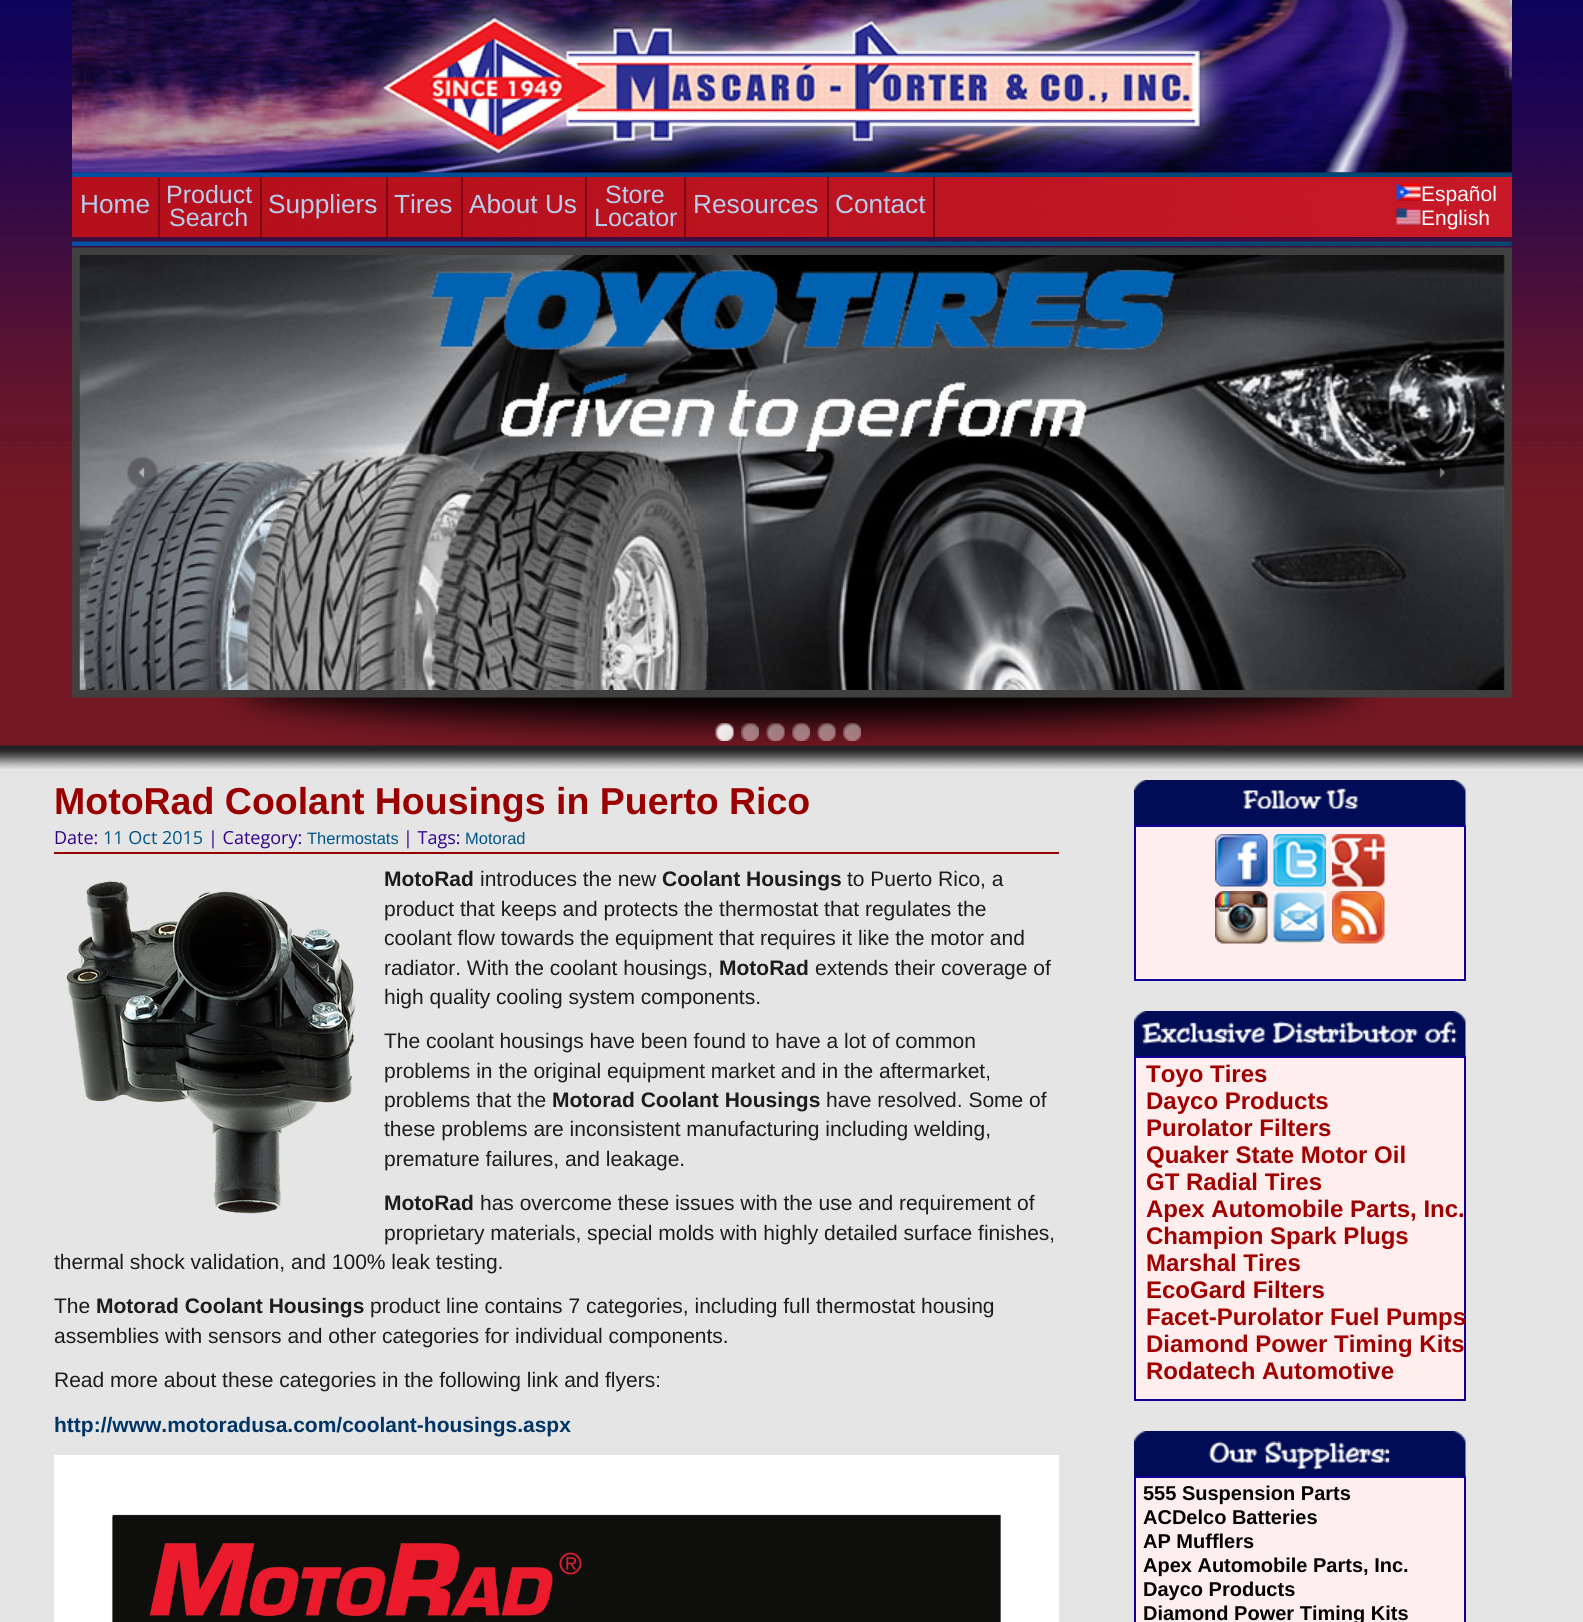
#include <cairo/cairo.h>
#include <math.h>
#include <stddef.h>

static cairo_t *cr;

static void use_color(int r, int g, int b) {
  cairo_set_source_rgb(cr, r / 255.0, g / 255.0, b / 255.0);
}

static void text(double x, double y, const char *s, const char *family, double size, int italic, int bold, int r, int g, int b) {
  cairo_select_font_face(cr, family, italic ? CAIRO_FONT_SLANT_ITALIC : CAIRO_FONT_SLANT_NORMAL,
    bold ? CAIRO_FONT_WEIGHT_BOLD : CAIRO_FONT_WEIGHT_NORMAL);
  cairo_set_font_size(cr, size);
  use_color(r, g, b);
  cairo_move_to(cr, x, y);
  cairo_show_text(cr, s);
}

static void box(double x, double y, double w, double h, int r, int g, int b) {
  use_color(r, g, b);
  cairo_rectangle(cr, x, y, w, h);
  cairo_fill(cr);
}

static void picture(const char *path, double x, double y, double w, double h) {
  cairo_surface_t *image = cairo_image_surface_create_from_png(path);
  cairo_save(cr);
  cairo_set_source_surface(cr, image, x, y);
  cairo_rectangle(cr, x, y, w, h);
  cairo_fill(cr);
  cairo_restore(cr);
  cairo_surface_destroy(image);
}

static void draw(void) {
  use_color(229, 229, 229);
  cairo_paint(cr);
  picture("img_01.png", 0, 0, 1583, 769);
  picture("img_02.png", 72, 0, 1440, 173);
  picture("img_03.png", 72, 172, 1440, 5);
  picture("img_04.png", 72, 177, 1440, 60);
  box(158, 177, 2, 60, 128, 5, 23);
  box(260, 177, 2, 60, 128, 5, 23);
  box(386, 177, 2, 60, 128, 5, 23);
  box(461, 177, 2, 60, 128, 5, 23);
  box(585, 177, 2, 60, 128, 5, 23);
  box(684, 177, 2, 60, 128, 5, 23);
  box(827, 177, 2, 60, 128, 5, 23);
  box(933, 177, 2, 60, 128, 5, 23);
  picture("img_05.png", 1396, 183, 25, 18);
  picture("img_06.png", 1396, 208, 25, 17);
  picture("img_07.png", 72, 241, 1440, 5);
  picture("img_08.png", 72, 247, 1440, 499);
  picture("img_09.png", 79, 255, 1426, 435);
  picture("img_10.png", 127, 457, 31, 31);
  picture("img_11.png", 1426, 457, 31, 31);
  picture("img_12.png", 715, 723, 19, 18);
  picture("img_13.png", 741, 723, 18, 18);
  picture("img_14.png", 766, 723, 19, 18);
  picture("img_15.png", 792, 723, 18, 18);
  picture("img_16.png", 817, 723, 19, 18);
  picture("img_17.png", 843, 723, 18, 18);
  box(54, 852, 1005, 2, 153, 0, 0);
  picture("img_18.png", 66, 881, 290, 333);
  picture("img_19.png", 54, 1455, 1005, 167);
  picture("img_20.png", 1134, 780, 332, 45);
  use_color(255, 238, 238);
  cairo_rectangle(cr, 1135, 826, 330, 154);
  cairo_fill_preserve(cr);
  use_color(18, 0, 150);
  cairo_stroke(cr);
  picture("img_21.png", 1215, 834, 53, 53);
  picture("img_22.png", 1273, 834, 53, 53);
  picture("img_23.png", 1332, 834, 53, 53);
  picture("img_24.png", 1215, 891, 53, 53);
  picture("img_25.png", 1273, 891, 53, 53);
  picture("img_26.png", 1332, 891, 53, 53);
  picture("img_27.png", 1134, 1011, 332, 45);
  use_color(255, 238, 238);
  cairo_rectangle(cr, 1135, 1057, 330, 343);
  cairo_fill_preserve(cr);
  use_color(18, 0, 150);
  cairo_stroke(cr);
  picture("img_28.png", 1134, 1431, 332, 45);
  use_color(255, 238, 238);
  cairo_rectangle(cr, 1135, 1477, 330, 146);
  cairo_fill_preserve(cr);
  use_color(18, 0, 150);
  cairo_stroke(cr);
  text(80, 213, "Home", "Liberation Sans", 26.25, 0, 0, 183, 206, 236);
  text(166, 203, "Product", "Liberation Sans", 25, 0, 0, 183, 206, 236);
  text(169, 226, "Search", "Liberation Sans", 25, 0, 0, 183, 206, 236);
  text(268, 213, "Suppliers", "Liberation Sans", 26.25, 0, 0, 183, 206, 236);
  text(394, 213, "Tires", "Liberation Sans", 26.25, 0, 0, 183, 206, 236);
  text(469, 213, "About Us", "Liberation Sans", 26.25, 0, 0, 183, 206, 236);
  text(605, 203, "Store", "Liberation Sans", 25, 0, 0, 183, 206, 236);
  text(594, 226, "Locator", "Liberation Sans", 25, 0, 0, 183, 206, 236);
  text(693, 213, "Resources", "Liberation Sans", 26.25, 0, 0, 183, 206, 236);
  text(835, 213, "Contact", "Liberation Sans", 26.25, 0, 0, 183, 206, 236);
  text(1421, 201, "Español", "Liberation Sans", 21, 0, 0, 255, 255, 255);
  text(1421, 225, "English", "Liberation Sans", 21, 0, 0, 255, 255, 255);
  text(54, 814, "MotoRad Coolant Housings in Puerto Rico", "Liberation Sans", 37.5, 0, 1, 153, 0, 0);
  text(54, 844, "Date:", "Open Sans", 18, 0, 0, 51, 0, 136);
  text(103, 844, "11 Oct 2015", "Open Sans", 18, 0, 0, 0, 85, 136);
  text(208, 844, "| Category:", "Open Sans", 18, 0, 0, 51, 0, 136);
  text(307, 844, "Thermostats", "Liberation Sans", 16.5, 0, 0, 0, 85, 136);
  text(403, 844, "| Tags:", "Open Sans", 18, 0, 0, 51, 0, 136);
  text(465, 844, "Motorad", "Liberation Sans", 16.5, 0, 0, 0, 85, 136);
  text(384, 886, "MotoRad", "Liberation Sans", 21, 0, 1, 28, 28, 28);
  text(480, 886, "introduces the new", "Liberation Sans", 21, 0, 0, 28, 28, 28);
  text(662, 886, "Coolant Housings", "Liberation Sans", 21, 0, 1, 28, 28, 28);
  text(847, 886, "to Puerto Rico, a", "Liberation Sans", 21, 0, 0, 28, 28, 28);
  text(384, 916, "product that keeps and protects the thermostat that regulates the", "Liberation Sans", 21, 0, 0, 28, 28, 28);
  text(384, 945, "coolant flow towards the equipment that requires it like the motor and", "Liberation Sans", 21, 0, 0, 28, 28, 28);
  text(384, 975, "radiator. With the coolant housings,", "Liberation Sans", 21, 0, 0, 28, 28, 28);
  text(719, 975, "MotoRad", "Liberation Sans", 21, 0, 1, 28, 28, 28);
  text(815, 975, "extends their coverage of", "Liberation Sans", 21, 0, 0, 28, 28, 28);
  text(384, 1004, "high quality cooling system components.", "Liberation Sans", 21, 0, 0, 28, 28, 28);
  text(384, 1048, "The coolant housings have been found to have a lot of common", "Liberation Sans", 21, 0, 0, 28, 28, 28);
  text(384, 1078, "problems in the original equipment market and in the aftermarket,", "Liberation Sans", 21, 0, 0, 28, 28, 28);
  text(384, 1107, "problems that the", "Liberation Sans", 21, 0, 0, 28, 28, 28);
  text(552, 1107, "Motorad Coolant Housings", "Liberation Sans", 21, 0, 1, 28, 28, 28);
  text(826, 1107, "have resolved. Some of", "Liberation Sans", 21, 0, 0, 28, 28, 28);
  text(384, 1136, "these problems are inconsistent manufacturing including welding,", "Liberation Sans", 21, 0, 0, 28, 28, 28);
  text(384, 1166, "premature failures, and leakage.", "Liberation Sans", 21, 0, 0, 28, 28, 28);
  text(384, 1210, "MotoRad", "Liberation Sans", 21, 0, 1, 28, 28, 28);
  text(480, 1210, "has overcome these issues with the use and requirement of", "Liberation Sans", 21, 0, 0, 28, 28, 28);
  text(384, 1240, "proprietary materials, special molds with highly detailed surface finishes,", "Liberation Sans", 21, 0, 0, 28, 28, 28);
  text(54, 1269, "thermal shock validation, and 100% leak testing.", "Liberation Sans", 21, 0, 0, 28, 28, 28);
  text(54, 1313, "The", "Liberation Sans", 21, 0, 0, 28, 28, 28);
  text(96, 1313, "Motorad Coolant Housings", "Liberation Sans", 21, 0, 1, 28, 28, 28);
  text(370, 1313, "product line contains 7 categories, including full thermostat housing", "Liberation Sans", 21, 0, 0, 28, 28, 28);
  text(54, 1343, "assemblies with sensors and other categories for individual components.", "Liberation Sans", 21, 0, 0, 28, 28, 28);
  text(54, 1387, "Read more about these categories in the following link and flyers:", "Liberation Sans", 21, 0, 0, 28, 28, 28);
  text(54, 1432, "http://www.motoradusa.com/coolant-housings.aspx", "Liberation Sans", 21, 0, 1, 0, 51, 102);
  text(1146, 1082, "Toyo Tires", "Liberation Sans", 24, 0, 1, 161, 0, 0);
  text(1146, 1109, "Dayco Products", "Liberation Sans", 24, 0, 1, 161, 0, 0);
  text(1146, 1136, "Purolator Filters", "Liberation Sans", 24, 0, 1, 161, 0, 0);
  text(1146, 1163, "Quaker State Motor Oil", "Liberation Sans", 24, 0, 1, 161, 0, 0);
  text(1146, 1190, "GT Radial Tires", "Liberation Sans", 24, 0, 1, 161, 0, 0);
  text(1146, 1217, "Apex Automobile Parts, Inc.", "Liberation Sans", 24, 0, 1, 161, 0, 0);
  text(1146, 1244, "Champion Spark Plugs", "Liberation Sans", 24, 0, 1, 161, 0, 0);
  text(1146, 1271, "Marshal Tires", "Liberation Sans", 24, 0, 1, 161, 0, 0);
  text(1146, 1298, "EcoGard Filters", "Liberation Sans", 24, 0, 1, 161, 0, 0);
  text(1146, 1325, "Facet-Purolator Fuel Pumps", "Liberation Sans", 24, 0, 1, 161, 0, 0);
  text(1146, 1352, "Diamond Power Timing Kits", "Liberation Sans", 24, 0, 1, 161, 0, 0);
  text(1146, 1379, "Rodatech Automotive", "Liberation Sans", 24, 0, 1, 161, 0, 0);
  text(1143, 1500, "555 Suspension Parts", "Liberation Sans", 20, 0, 1, 0, 0, 0);
  text(1143, 1524, "ACDelco Batteries", "Liberation Sans", 20, 0, 1, 0, 0, 0);
  text(1143, 1548, "AP Mufflers", "Liberation Sans", 20, 0, 1, 0, 0, 0);
  text(1143, 1572, "Apex Automobile Parts, Inc.", "Liberation Sans", 20, 0, 1, 0, 0, 0);
  text(1143, 1596, "Dayco Products", "Liberation Sans", 20, 0, 1, 0, 0, 0);
  text(1143, 1620, "Diamond Power Timing Kits", "Liberation Sans", 20, 0, 1, 0, 0, 0);
}

int main(void) {
  cairo_surface_t *surface = cairo_image_surface_create(CAIRO_FORMAT_RGB24, 1583, 1622);
  cr = cairo_create(surface);
  cairo_font_options_t *options = cairo_font_options_create();
  cairo_font_options_set_hint_metrics(options, CAIRO_HINT_METRICS_OFF);
  cairo_font_options_set_hint_style(options, CAIRO_HINT_STYLE_NONE);
  cairo_set_font_options(cr, options);
  cairo_set_miter_limit(cr, 4);
  draw();
  cairo_surface_write_to_png(surface, "out.png");
  cairo_font_options_destroy(options);
  cairo_destroy(cr);
  cairo_surface_destroy(surface);
  return 0;
}
